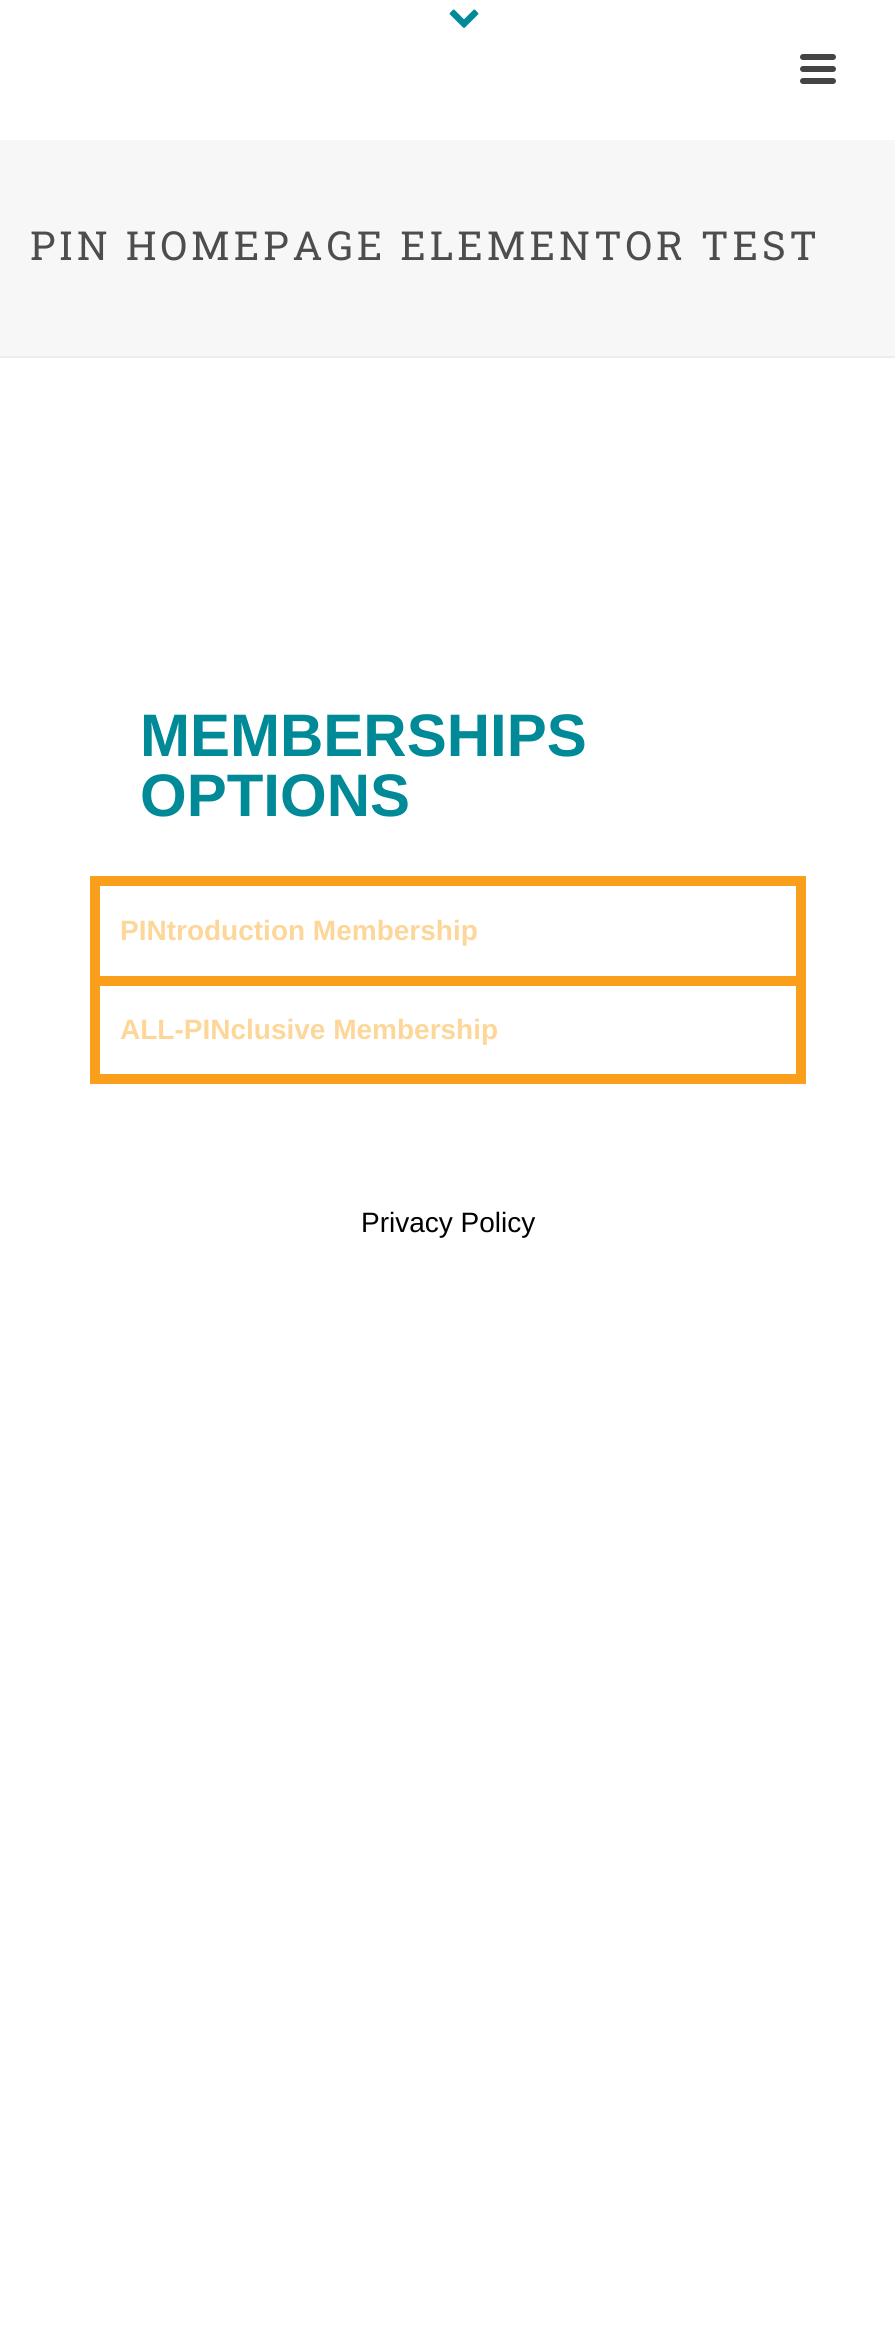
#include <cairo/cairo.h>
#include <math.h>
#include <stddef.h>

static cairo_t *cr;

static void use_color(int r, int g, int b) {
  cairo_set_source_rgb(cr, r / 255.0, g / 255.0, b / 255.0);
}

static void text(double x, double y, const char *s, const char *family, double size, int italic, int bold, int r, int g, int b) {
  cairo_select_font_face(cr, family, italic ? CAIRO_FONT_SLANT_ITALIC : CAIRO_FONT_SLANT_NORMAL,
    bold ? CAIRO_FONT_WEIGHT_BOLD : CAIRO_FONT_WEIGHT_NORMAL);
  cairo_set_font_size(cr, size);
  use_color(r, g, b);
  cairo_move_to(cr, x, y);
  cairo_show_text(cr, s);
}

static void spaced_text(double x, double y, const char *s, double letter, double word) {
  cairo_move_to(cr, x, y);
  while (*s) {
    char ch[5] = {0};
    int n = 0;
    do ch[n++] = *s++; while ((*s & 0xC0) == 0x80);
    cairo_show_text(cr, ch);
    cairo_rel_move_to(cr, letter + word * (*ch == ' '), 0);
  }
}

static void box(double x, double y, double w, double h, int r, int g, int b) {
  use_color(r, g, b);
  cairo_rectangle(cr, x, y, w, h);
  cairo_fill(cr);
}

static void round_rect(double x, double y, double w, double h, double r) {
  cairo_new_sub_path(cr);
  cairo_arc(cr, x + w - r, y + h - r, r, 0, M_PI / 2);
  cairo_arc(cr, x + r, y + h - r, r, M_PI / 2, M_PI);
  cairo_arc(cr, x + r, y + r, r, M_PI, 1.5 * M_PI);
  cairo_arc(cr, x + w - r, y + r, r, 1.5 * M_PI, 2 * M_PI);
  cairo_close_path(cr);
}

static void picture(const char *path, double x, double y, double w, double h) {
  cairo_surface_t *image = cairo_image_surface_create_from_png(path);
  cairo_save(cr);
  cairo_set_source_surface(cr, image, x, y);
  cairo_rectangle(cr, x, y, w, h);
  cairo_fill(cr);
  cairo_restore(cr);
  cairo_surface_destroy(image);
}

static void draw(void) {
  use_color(255, 255, 255);
  cairo_paint(cr);
  box(0, 140, 895, 216, 247, 247, 247);
  box(0, 356, 895, 2, 237, 237, 237);
  picture("img_01.png", 449, 9, 30, 19);
  use_color(68, 68, 68);
  round_rect(800, 54, 36, 6, 3);
  cairo_fill(cr);
  round_rect(800, 66, 36, 6, 3);
  cairo_fill(cr);
  round_rect(800, 78, 36, 6, 3);
  cairo_fill(cr);
  box(90, 1074, 716, 10, 249, 159, 28);
  box(100, 876, 696, 10, 249, 159, 28);
  box(796, 876, 10, 198, 249, 159, 28);
  box(90, 876, 10, 198, 249, 159, 28);
  box(100, 976, 696, 10, 249, 159, 28);
  cairo_select_font_face(cr, "Roboto Slab", CAIRO_FONT_SLANT_NORMAL, CAIRO_FONT_WEIGHT_NORMAL);
  cairo_set_font_size(cr, 40);
  use_color(77, 77, 77);
  spaced_text(30, 260, "PIN HOMEPAGE ELEMENTOR TEST", 4, 0);
  text(140, 756, "MEMBERSHIPS", "Liberation Sans", 60, 0, 1, 0, 137, 150);
  text(140, 816, "OPTIONS", "Liberation Sans", 60, 0, 1, 0, 137, 150);
  text(120, 940, "PINtroduction Membership", "Liberation Sans", 28, 0, 1, 253, 214, 153);
  text(120, 1039, "ALL-PINclusive Membership", "Liberation Sans", 28, 0, 1, 253, 214, 153);
  text(361, 1232, "Privacy Policy", "Liberation Sans", 28, 0, 0, 0, 0, 0);
}

int main(void) {
  cairo_surface_t *surface = cairo_image_surface_create(CAIRO_FORMAT_RGB24, 895, 2351);
  cr = cairo_create(surface);
  cairo_font_options_t *options = cairo_font_options_create();
  cairo_font_options_set_hint_metrics(options, CAIRO_HINT_METRICS_OFF);
  cairo_font_options_set_hint_style(options, CAIRO_HINT_STYLE_NONE);
  cairo_set_font_options(cr, options);
  cairo_set_miter_limit(cr, 4);
  draw();
  cairo_surface_write_to_png(surface, "out.png");
  cairo_font_options_destroy(options);
  cairo_destroy(cr);
  cairo_surface_destroy(surface);
  return 0;
}
